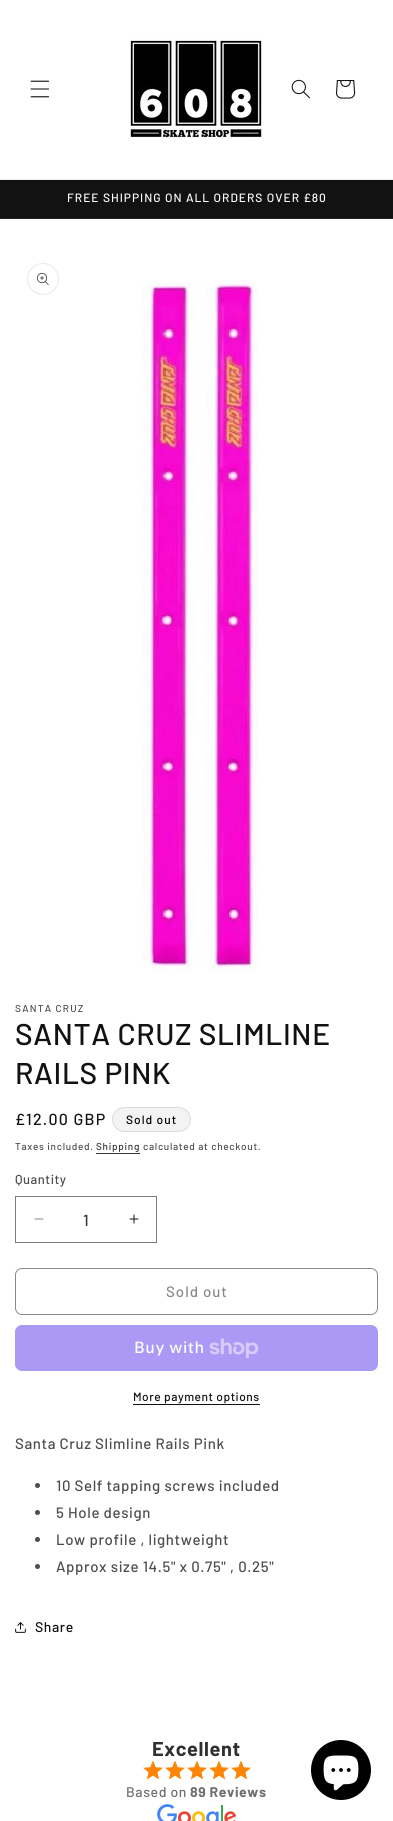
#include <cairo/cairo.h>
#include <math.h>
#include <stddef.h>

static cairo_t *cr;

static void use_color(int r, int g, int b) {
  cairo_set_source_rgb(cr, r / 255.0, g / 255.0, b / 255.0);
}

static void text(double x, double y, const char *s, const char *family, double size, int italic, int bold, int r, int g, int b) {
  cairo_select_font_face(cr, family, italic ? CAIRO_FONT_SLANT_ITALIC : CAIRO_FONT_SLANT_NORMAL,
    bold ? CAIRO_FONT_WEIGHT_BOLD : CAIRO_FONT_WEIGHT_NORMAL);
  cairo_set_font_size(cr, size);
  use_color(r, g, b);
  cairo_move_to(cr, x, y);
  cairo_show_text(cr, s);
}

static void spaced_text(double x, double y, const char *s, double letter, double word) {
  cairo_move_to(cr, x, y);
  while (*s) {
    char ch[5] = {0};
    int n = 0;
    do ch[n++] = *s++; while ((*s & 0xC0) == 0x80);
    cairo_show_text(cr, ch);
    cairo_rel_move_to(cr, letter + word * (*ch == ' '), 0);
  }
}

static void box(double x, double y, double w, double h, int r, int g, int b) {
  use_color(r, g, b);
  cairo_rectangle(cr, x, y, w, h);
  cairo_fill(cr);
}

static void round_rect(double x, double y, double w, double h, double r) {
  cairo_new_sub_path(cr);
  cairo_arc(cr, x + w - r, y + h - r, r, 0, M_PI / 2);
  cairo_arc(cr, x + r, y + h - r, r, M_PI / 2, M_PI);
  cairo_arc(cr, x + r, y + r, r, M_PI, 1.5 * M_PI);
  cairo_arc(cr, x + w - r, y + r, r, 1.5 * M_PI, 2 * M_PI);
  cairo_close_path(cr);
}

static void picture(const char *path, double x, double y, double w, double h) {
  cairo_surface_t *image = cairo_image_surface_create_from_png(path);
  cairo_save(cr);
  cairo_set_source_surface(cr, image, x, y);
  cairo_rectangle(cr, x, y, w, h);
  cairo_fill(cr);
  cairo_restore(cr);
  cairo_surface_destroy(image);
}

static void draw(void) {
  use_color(255, 255, 255);
  cairo_paint(cr);
  box(0, 179, 393, 1, 236, 236, 236);
  picture("img_01.png", 30, 80, 20, 18);
  picture("img_02.png", 129, 38, 136, 100);
  picture("img_03.png", 291, 79, 19, 20);
  picture("img_04.png", 336, 80, 20, 19);
  box(0, 180, 393, 38, 18, 18, 18);
  box(0, 218, 393, 1, 37, 37, 37);
  cairo_arc(cr, 43, 279, 15.5, 0, 2 * M_PI);
  use_color(231, 231, 231);
  cairo_set_line_width(cr, 1);
  cairo_stroke(cr);
  picture("img_05.png", 37, 273, 12, 12);
  picture("img_06.png", 142, 280, 117, 691);
  use_color(243, 243, 243);
  round_rect(112, 1107, 79, 25, 12.5);
  cairo_fill(cr);
  round_rect(112.5, 1107.5, 78, 24, 12);
  cairo_set_source_rgba(cr, 0, 0, 0, 0.1);
  cairo_stroke(cr);
  box(96, 1153, 44, 1, 54, 54, 54);
  picture("img_07.png", 34, 1218, 10, 2);
  picture("img_08.png", 129, 1214, 10, 10);
  cairo_rectangle(cr, 15.5, 1196.5, 141, 46);
  use_color(125, 125, 125);
  cairo_stroke(cr);
  round_rect(15.5, 1268.5, 362, 46, 6.5);
  use_color(137, 137, 137);
  cairo_stroke(cr);
  use_color(170, 153, 245);
  round_rect(15, 1325, 363, 46, 7);
  cairo_fill(cr);
  picture("img_09.png", 209, 1338, 50, 20);
  box(133, 1404, 127, 1, 18, 18, 18);
  use_color(77, 77, 77);
  cairo_arc(cr, 37.5, 1485.5, 2.5, 0, 2 * M_PI);
  cairo_fill(cr);
  cairo_arc(cr, 37.5, 1512.5, 2.5, 0, 2 * M_PI);
  cairo_fill(cr);
  cairo_arc(cr, 37.5, 1539.5, 2.5, 0, 2 * M_PI);
  cairo_fill(cr);
  cairo_arc(cr, 37.5, 1566.5, 2.5, 0, 2 * M_PI);
  cairo_fill(cr);
  picture("img_10.png", 15, 1622, 11, 11);
  picture("img_11.png", 143, 1760, 20, 20);
  picture("img_11.png", 165, 1760, 20, 20);
  picture("img_11.png", 187, 1760, 20, 20);
  picture("img_11.png", 209, 1760, 20, 20);
  picture("img_11.png", 231, 1760, 20, 20);
  picture("img_12.png", 157, 1804, 79, 17);
  use_color(0, 0, 0);
  cairo_arc(cr, 341, 1770, 30, 0, 2 * M_PI);
  cairo_fill(cr);
  picture("img_13.png", 323, 1755, 36, 36);
  cairo_select_font_face(cr, "Barlow Medium", CAIRO_FONT_SLANT_NORMAL, CAIRO_FONT_WEIGHT_NORMAL);
  cairo_set_font_size(cr, 12);
  use_color(255, 255, 255);
  spaced_text(67, 202, "FREE SHIPPING ON ALL ORDERS OVER £80", 1, 0);
  cairo_set_font_size(cr, 10);
  use_color(77, 77, 77);
  spaced_text(15, 1012, "SANTA CRUZ", 1.25, 0);
  cairo_set_font_size(cr, 30);
  use_color(18, 18, 18);
  spaced_text(15, 1045, "SANTA CRUZ SLIMLINE", 0.6, 0);
  spaced_text(15, 1084, "RAILS PINK", 0.6, 0);
  cairo_set_font_size(cr, 16);
  spaced_text(15, 1125, "£12.00 GBP", 1.25, 0);
  cairo_set_font_size(cr, 12);
  use_color(0, 0, 0);
  spaced_text(126, 1124, "Sold out", 1, 0);
  cairo_set_font_size(cr, 10);
  use_color(77, 77, 77);
  spaced_text(15, 1150, "Taxes included.", 0.7, 0);
  use_color(54, 54, 54);
  spaced_text(96, 1150, "Shipping", 0.7, 0);
  use_color(77, 77, 77);
  spaced_text(143, 1150, "calculated at checkout.", 0.7, 0);
  cairo_set_font_size(cr, 13);
  spaced_text(15, 1184, "Quantity", 0.5, 0);
  text(83, 1226, "1", "Barlow Medium", 16, 0, 0, 54, 54, 54);
  cairo_set_font_size(cr, 15);
  use_color(137, 137, 137);
  spaced_text(166, 1297, "Sold out", 1, 0);
  cairo_select_font_face(cr, "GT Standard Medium", CAIRO_FONT_SLANT_NORMAL, CAIRO_FONT_WEIGHT_NORMAL);
  cairo_set_font_size(cr, 16);
  use_color(255, 255, 255);
  spaced_text(134, 1353, "Buy with", 0.6, 0);
  cairo_select_font_face(cr, "Barlow Medium", CAIRO_FONT_SLANT_NORMAL, CAIRO_FONT_WEIGHT_NORMAL);
  cairo_set_font_size(cr, 12);
  use_color(18, 18, 18);
  spaced_text(133, 1401, "More payment options", 0.5, 0);
  cairo_set_font_size(cr, 15);
  use_color(77, 77, 77);
  spaced_text(15, 1449, "Santa Cruz Slimline Rails Pink", 0.6, 0);
  spaced_text(56, 1491, "10 Self tapping screws included", 0.6, 0);
  spaced_text(56, 1518, "5 Hole design", 0.6, 0);
  spaced_text(56, 1545, "Low profile , lightweight", 0.6, 0);
  spaced_text(56, 1572, "Approx size 14.5\" x 0.75\" , 0.25\"", 0.6, 0);
  cairo_set_font_size(cr, 14);
  use_color(18, 18, 18);
  spaced_text(35, 1632, "Share", 0.6, 0);
  cairo_select_font_face(cr, "Barlow", CAIRO_FONT_SLANT_NORMAL, CAIRO_FONT_WEIGHT_BOLD);
  cairo_set_font_size(cr, 20);
  use_color(48, 48, 48);
  spaced_text(152, 1756, "Excellent", 0.6, 0);
  cairo_select_font_face(cr, "Barlow Medium", CAIRO_FONT_SLANT_NORMAL, CAIRO_FONT_WEIGHT_NORMAL);
  cairo_set_font_size(cr, 14);
  use_color(110, 110, 110);
  spaced_text(126, 1797, "Based on", 0.6, 0);
  cairo_select_font_face(cr, "Barlow", CAIRO_FONT_SLANT_NORMAL, CAIRO_FONT_WEIGHT_BOLD);
  spaced_text(190, 1797, "89 Reviews", 0.6, 0);
}

int main(void) {
  cairo_surface_t *surface = cairo_image_surface_create(CAIRO_FORMAT_RGB24, 393, 1821);
  cr = cairo_create(surface);
  cairo_font_options_t *options = cairo_font_options_create();
  cairo_font_options_set_hint_metrics(options, CAIRO_HINT_METRICS_OFF);
  cairo_font_options_set_hint_style(options, CAIRO_HINT_STYLE_NONE);
  cairo_set_font_options(cr, options);
  cairo_set_miter_limit(cr, 4);
  draw();
  cairo_surface_write_to_png(surface, "out.png");
  cairo_font_options_destroy(options);
  cairo_destroy(cr);
  cairo_surface_destroy(surface);
  return 0;
}
